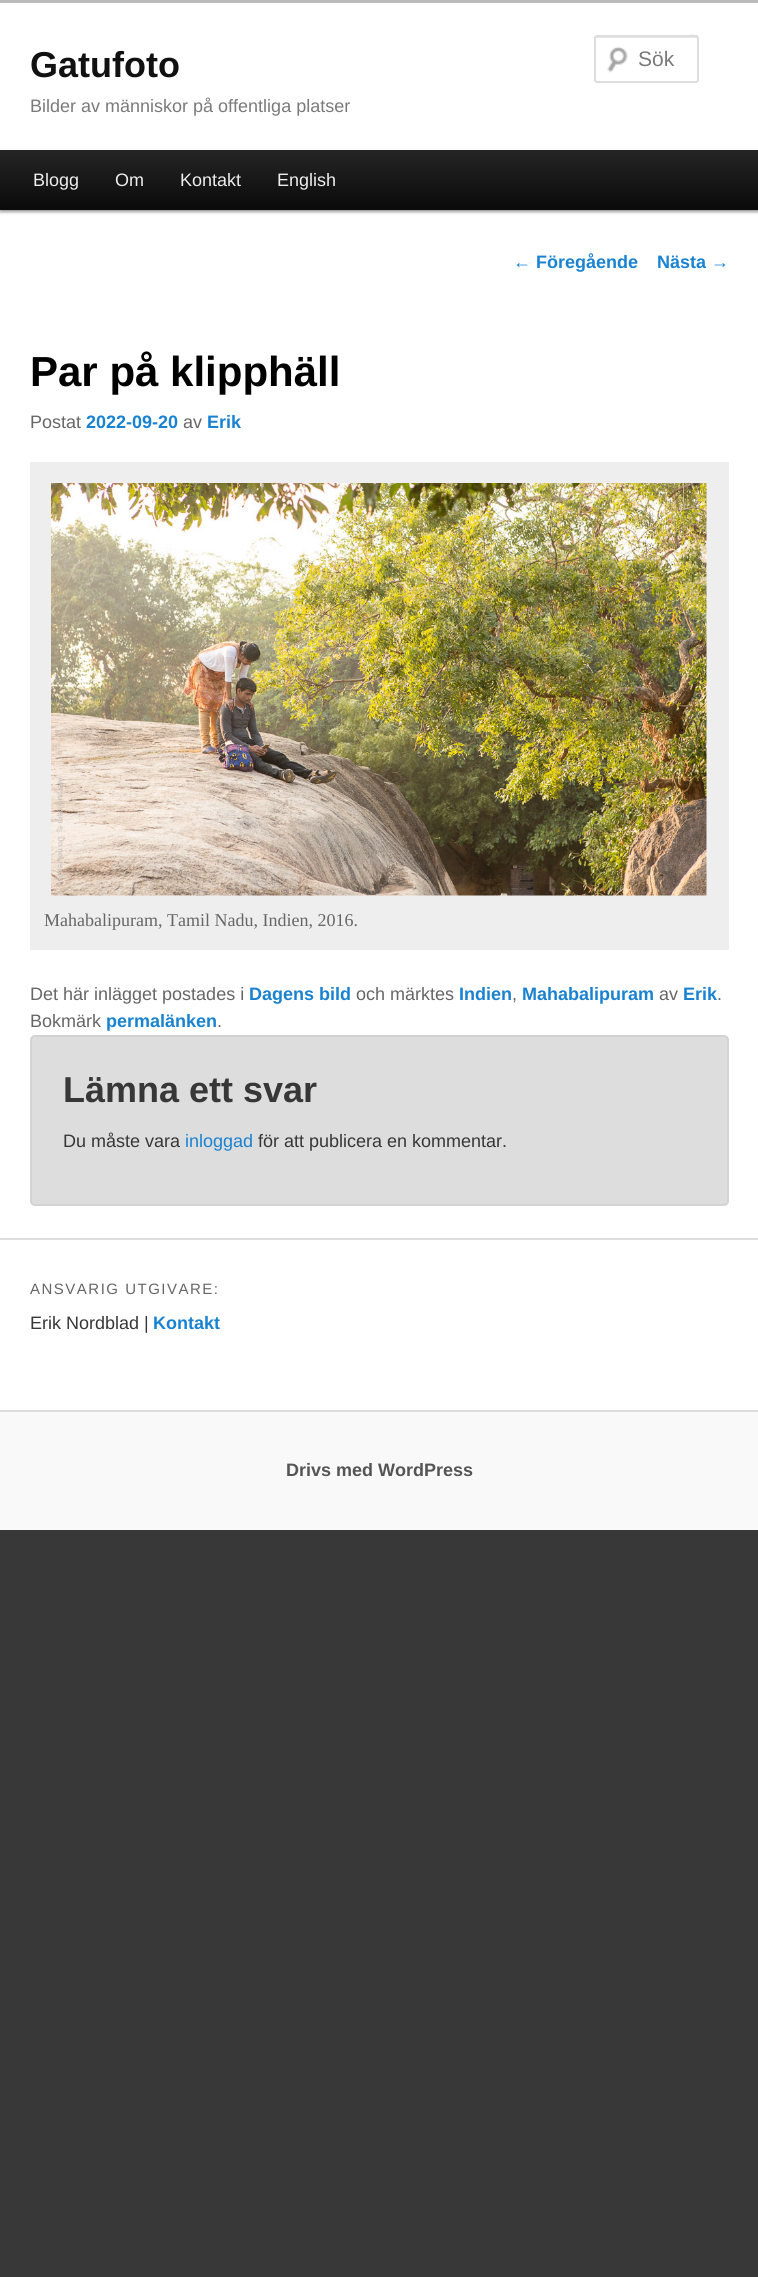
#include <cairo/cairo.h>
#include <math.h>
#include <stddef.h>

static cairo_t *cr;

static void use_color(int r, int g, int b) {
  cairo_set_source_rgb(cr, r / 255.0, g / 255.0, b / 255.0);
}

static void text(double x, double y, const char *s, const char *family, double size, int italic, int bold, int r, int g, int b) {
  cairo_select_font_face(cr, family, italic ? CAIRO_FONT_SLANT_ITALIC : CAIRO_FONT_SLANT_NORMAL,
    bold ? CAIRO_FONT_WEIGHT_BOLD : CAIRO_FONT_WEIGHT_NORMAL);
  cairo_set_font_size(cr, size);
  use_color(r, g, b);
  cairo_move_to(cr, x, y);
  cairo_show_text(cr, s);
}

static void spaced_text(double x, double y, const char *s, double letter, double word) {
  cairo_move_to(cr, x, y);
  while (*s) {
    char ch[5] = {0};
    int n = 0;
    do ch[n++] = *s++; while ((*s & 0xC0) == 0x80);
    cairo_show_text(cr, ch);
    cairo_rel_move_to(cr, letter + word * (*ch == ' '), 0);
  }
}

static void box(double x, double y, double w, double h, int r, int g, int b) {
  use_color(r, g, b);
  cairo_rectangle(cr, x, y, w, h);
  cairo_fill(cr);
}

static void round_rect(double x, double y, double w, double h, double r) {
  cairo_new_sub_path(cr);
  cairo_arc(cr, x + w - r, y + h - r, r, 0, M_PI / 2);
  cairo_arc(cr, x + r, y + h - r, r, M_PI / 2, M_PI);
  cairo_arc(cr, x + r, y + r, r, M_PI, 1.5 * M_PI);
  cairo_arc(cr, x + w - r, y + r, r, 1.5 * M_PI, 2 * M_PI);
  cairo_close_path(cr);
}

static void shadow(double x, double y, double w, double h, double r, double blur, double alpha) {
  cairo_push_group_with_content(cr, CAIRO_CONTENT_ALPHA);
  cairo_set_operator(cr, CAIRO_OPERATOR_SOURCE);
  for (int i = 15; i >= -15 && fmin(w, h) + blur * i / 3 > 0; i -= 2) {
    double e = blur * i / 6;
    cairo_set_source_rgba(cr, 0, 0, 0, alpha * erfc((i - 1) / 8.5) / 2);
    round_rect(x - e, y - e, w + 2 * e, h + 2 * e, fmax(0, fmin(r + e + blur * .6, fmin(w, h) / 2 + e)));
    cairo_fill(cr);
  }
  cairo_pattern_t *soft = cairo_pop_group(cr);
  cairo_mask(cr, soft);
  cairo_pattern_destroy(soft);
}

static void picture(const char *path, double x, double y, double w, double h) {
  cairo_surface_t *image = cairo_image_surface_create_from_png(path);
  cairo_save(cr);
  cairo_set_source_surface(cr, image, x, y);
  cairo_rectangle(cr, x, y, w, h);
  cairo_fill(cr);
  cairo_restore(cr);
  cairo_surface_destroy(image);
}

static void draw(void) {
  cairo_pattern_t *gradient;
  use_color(56, 56, 56);
  cairo_paint(cr);
  box(0, 3, 758, 1407, 255, 255, 255);
  box(0, 0, 758, 3, 187, 187, 187);
  picture("img_01.png", 607, 46, 21, 27);
  use_color(230, 230, 230);
  cairo_new_path(cr);
  cairo_move_to(cr, 597, 38);
  cairo_line_to(cr, 696, 38);
  cairo_curve_to(cr, 697, 38, 698, 38, 698, 39);
  cairo_curve_to(cr, 698, 31, 685, 36, 680, 36);
  cairo_line_to(cr, 598, 36);
  cairo_curve_to(cr, 596, 36, 596, 38, 596, 39);
  cairo_curve_to(cr, 596, 38, 596, 38, 597, 38);
  cairo_close_path(cr);
  cairo_fill(cr);
  round_rect(595, 36, 103, 46, 2);
  use_color(221, 221, 221);
  cairo_stroke(cr);
  use_color(0, 0, 0);
  shadow(0, 152, 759, 60, 0, 1.5, 0.4);
  gradient = cairo_pattern_create_linear(380, 150, 380, 210);
  cairo_pattern_add_color_stop_rgba(gradient, 0, 0.145, 0.145, 0.145, 1);
  cairo_pattern_add_color_stop_rgba(gradient, 1, 0.039, 0.039, 0.039, 1);
  cairo_set_source(cr, gradient);
  cairo_pattern_destroy(gradient);
  cairo_rectangle(cr, 0, 150, 758, 60);
  cairo_fill(cr);
  box(30, 462, 699, 488, 238, 238, 238);
  picture("img_02.png", 51, 483, 656, 413);
  use_color(221, 221, 221);
  round_rect(31, 1036, 697, 169, 4);
  cairo_fill_preserve(cr);
  use_color(211, 211, 211);
  cairo_stroke(cr);
  box(0, 1238, 758, 2, 221, 221, 221);
  box(0, 1412, 758, 118, 249, 249, 249);
  box(0, 1410, 758, 2, 221, 221, 221);
  text(30, 77, "Gatufoto", "Liberation Sans", 36, 0, 1, 17, 17, 17);
  text(30, 112, "Bilder av människor på offentliga platser", "Liberation Sans", 18, 0, 0, 122, 122, 122);
  text(638, 66, "Sök", "Liberation Sans", 21, 0, 0, 122, 122, 122);
  text(33, 186, "Blogg", "Liberation Sans", 18, 0, 0, 238, 238, 238);
  text(115, 186, "Om", "Liberation Sans", 18, 0, 0, 238, 238, 238);
  text(180, 186, "Kontakt", "Liberation Sans", 18, 0, 0, 238, 238, 238);
  text(277, 186, "English", "Liberation Sans", 18, 0, 0, 238, 238, 238);
  text(513, 268, "←", "Liberation Sans", 18, 0, 0, 25, 130, 209);
  text(536, 268, "Föregående", "Liberation Sans", 18, 0, 1, 25, 130, 209);
  text(657, 268, "Nästa", "Liberation Sans", 18, 0, 1, 25, 130, 209);
  text(711, 268, "→", "Liberation Sans", 18, 0, 0, 25, 130, 209);
  text(30, 386, "Par på klipphäll", "Liberation Sans", 42, 0, 1, 0, 0, 0);
  text(30, 428, "Postat", "Liberation Sans", 18, 0, 0, 102, 102, 102);
  text(86, 428, "2022-09-20", "Liberation Sans", 18, 0, 1, 25, 130, 209);
  text(183, 428, "av", "Liberation Sans", 18, 0, 0, 102, 102, 102);
  text(207, 428, "Erik", "Liberation Sans", 18, 0, 1, 25, 130, 209);
  text(44, 926, "Mahabalipuram, Tamil Nadu, Indien, 2016.", "Liberation Serif", 18, 0, 0, 102, 102, 102);
  text(30, 1000, "Det här inlägget postades i", "Liberation Sans", 18, 0, 0, 102, 102, 102);
  text(249, 1000, "Dagens bild", "Liberation Sans", 18, 0, 1, 25, 130, 209);
  text(356, 1000, "och märktes", "Liberation Sans", 18, 0, 0, 102, 102, 102);
  text(459, 1000, "Indien", "Liberation Sans", 18, 0, 1, 25, 130, 209);
  text(512, 1000, ",", "Liberation Sans", 18, 0, 0, 102, 102, 102);
  text(522, 1000, "Mahabalipuram", "Liberation Sans", 18, 0, 1, 25, 130, 209);
  text(659, 1000, "av", "Liberation Sans", 18, 0, 0, 102, 102, 102);
  text(683, 1000, "Erik", "Liberation Sans", 18, 0, 1, 25, 130, 209);
  text(717, 1000, ".", "Liberation Sans", 18, 0, 0, 102, 102, 102);
  text(30, 1027, "Bokmärk", "Liberation Sans", 18, 0, 0, 102, 102, 102);
  text(106, 1027, "permalänken", "Liberation Sans", 18, 0, 1, 25, 130, 209);
  text(217, 1027, ".", "Liberation Sans", 18, 0, 0, 102, 102, 102);
  text(63, 1102, "Lämna ett svar", "Liberation Sans", 36, 0, 1, 55, 55, 55);
  text(63, 1147, "Du måste vara", "Liberation Sans", 18, 0, 0, 55, 55, 55);
  text(185, 1147, "inloggad", "Liberation Sans", 18, 0, 0, 25, 130, 209);
  text(258, 1147, "för att publicera en kommentar.", "Liberation Sans", 18, 0, 0, 55, 55, 55);
  cairo_set_font_size(cr, 15);
  use_color(102, 102, 102);
  spaced_text(30, 1294, "ANSVARIG UTGIVARE:", 1.5, 0);
  text(30, 1329, "Erik Nordblad |", "Liberation Sans", 18, 0, 0, 55, 55, 55);
  text(153, 1329, "Kontakt", "Liberation Sans", 18, 0, 1, 25, 130, 209);
  text(286, 1476, "Drivs med WordPress", "Liberation Sans", 18, 0, 1, 85, 85, 85);
}

int main(void) {
  cairo_surface_t *surface = cairo_image_surface_create(CAIRO_FORMAT_RGB24, 758, 2277);
  cr = cairo_create(surface);
  cairo_font_options_t *options = cairo_font_options_create();
  cairo_font_options_set_hint_metrics(options, CAIRO_HINT_METRICS_OFF);
  cairo_font_options_set_hint_style(options, CAIRO_HINT_STYLE_NONE);
  cairo_set_font_options(cr, options);
  cairo_set_miter_limit(cr, 4);
  draw();
  cairo_surface_write_to_png(surface, "out.png");
  cairo_font_options_destroy(options);
  cairo_destroy(cr);
  cairo_surface_destroy(surface);
  return 0;
}
